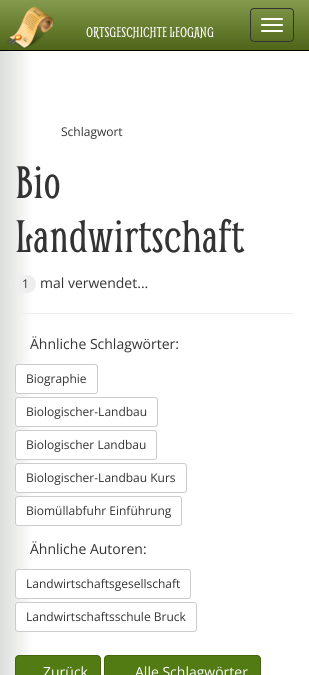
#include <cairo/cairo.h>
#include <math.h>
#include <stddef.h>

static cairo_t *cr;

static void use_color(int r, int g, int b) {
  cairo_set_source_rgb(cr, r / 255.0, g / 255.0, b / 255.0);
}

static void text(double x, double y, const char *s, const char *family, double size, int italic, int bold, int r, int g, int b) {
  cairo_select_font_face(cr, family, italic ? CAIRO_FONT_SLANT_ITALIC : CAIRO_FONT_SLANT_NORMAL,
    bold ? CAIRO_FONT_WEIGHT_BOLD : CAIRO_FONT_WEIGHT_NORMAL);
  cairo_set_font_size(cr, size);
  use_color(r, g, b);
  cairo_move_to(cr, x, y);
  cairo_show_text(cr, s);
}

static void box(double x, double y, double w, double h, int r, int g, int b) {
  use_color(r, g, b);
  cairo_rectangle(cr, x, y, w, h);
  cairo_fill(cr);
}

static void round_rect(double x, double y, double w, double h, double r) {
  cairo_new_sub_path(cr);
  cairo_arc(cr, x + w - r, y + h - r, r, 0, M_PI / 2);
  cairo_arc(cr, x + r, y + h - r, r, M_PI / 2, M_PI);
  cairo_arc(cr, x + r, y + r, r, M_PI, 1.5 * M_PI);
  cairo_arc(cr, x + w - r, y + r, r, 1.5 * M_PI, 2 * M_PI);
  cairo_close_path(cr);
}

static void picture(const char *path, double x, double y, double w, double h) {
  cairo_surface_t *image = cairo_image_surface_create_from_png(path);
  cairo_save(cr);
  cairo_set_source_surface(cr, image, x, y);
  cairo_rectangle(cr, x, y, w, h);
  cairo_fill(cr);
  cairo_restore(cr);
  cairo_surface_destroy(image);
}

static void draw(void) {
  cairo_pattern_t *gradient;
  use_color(255, 255, 255);
  cairo_paint(cr);
  gradient = cairo_pattern_create_linear(0, 653, 309, 653);
  cairo_pattern_add_color_stop_rgba(gradient, 0, 0.859, 0.867, 0.855, 1);
  cairo_pattern_add_color_stop_rgba(gradient, 0.11, 1, 1, 1, 1);
  cairo_pattern_add_color_stop_rgba(gradient, 1, 0.996, 1, 1, 1);
  cairo_set_source(cr, gradient);
  cairo_pattern_destroy(gradient);
  cairo_rectangle(cr, 0, 51, 32, 624);
  cairo_fill(cr);
  gradient = cairo_pattern_create_linear(155, 0, 155, 50);
  cairo_pattern_add_color_stop_rgba(gradient, 0, 0.518, 0.608, 0.302, 1);
  cairo_pattern_add_color_stop_rgba(gradient, 1, 0.306, 0.396, 0.098, 1);
  cairo_set_source(cr, gradient);
  cairo_pattern_destroy(gradient);
  cairo_rectangle(cr, 0, 0, 309, 50);
  cairo_fill(cr);
  box(0, 50, 309, 1, 0, 0, 0);
  picture("img_01.png", 7, 6, 47, 43);
  round_rect(250.5, 8.5, 43, 33, 3.5);
  use_color(51, 51, 51);
  cairo_set_line_width(cr, 1);
  cairo_stroke(cr);
  use_color(255, 255, 255);
  round_rect(261, 18, 22, 2, 1);
  cairo_fill(cr);
  round_rect(261, 24, 22, 2, 1);
  cairo_fill(cr);
  round_rect(261, 30, 22, 2, 1);
  cairo_fill(cr);
  use_color(238, 238, 238);
  round_rect(15, 275, 21, 18, 9);
  cairo_fill(cr);
  box(15, 313, 279, 1, 238, 238, 238);
  use_color(255, 255, 255);
  round_rect(15.5, 364.5, 82, 29, 2.5);
  cairo_fill_preserve(cr);
  use_color(204, 204, 204);
  cairo_stroke(cr);
  use_color(255, 255, 255);
  round_rect(15.5, 397.5, 142, 29, 2.5);
  cairo_fill_preserve(cr);
  use_color(204, 204, 204);
  cairo_stroke(cr);
  use_color(255, 255, 255);
  round_rect(15.5, 430.5, 141, 29, 2.5);
  cairo_fill_preserve(cr);
  use_color(204, 204, 204);
  cairo_stroke(cr);
  use_color(255, 255, 255);
  round_rect(15.5, 463.5, 171, 29, 2.5);
  cairo_fill_preserve(cr);
  use_color(204, 204, 204);
  cairo_stroke(cr);
  use_color(255, 255, 255);
  round_rect(15.5, 496.5, 166, 29, 2.5);
  cairo_fill_preserve(cr);
  use_color(204, 204, 204);
  cairo_stroke(cr);
  use_color(255, 255, 255);
  round_rect(15.5, 569.5, 175, 29, 2.5);
  cairo_fill_preserve(cr);
  use_color(204, 204, 204);
  cairo_stroke(cr);
  use_color(255, 255, 255);
  round_rect(15.5, 602.5, 181, 29, 2.5);
  cairo_fill_preserve(cr);
  use_color(204, 204, 204);
  cairo_stroke(cr);
  use_color(82, 123, 19);
  round_rect(15.5, 655.5, 85, 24, 3.5);
  cairo_fill_preserve(cr);
  use_color(67, 101, 16);
  cairo_stroke(cr);
  use_color(82, 123, 19);
  round_rect(104.5, 655.5, 156, 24, 3.5);
  cairo_fill_preserve(cr);
  use_color(67, 101, 16);
  cairo_stroke(cr);
  text(86, 37, "ORTSGESCHICHTE LEOGANG", "Smythe", 15.5, 0, 0, 255, 255, 255);
  text(61, 136, "Schlagwort", "Open Sans", 12, 0, 0, 51, 51, 51);
  text(15, 198, "Bio", "Smythe", 49, 0, 0, 51, 51, 51);
  text(15, 252, "Landwirtschaft", "Smythe", 49, 0, 0, 51, 51, 51);
  text(22, 288, "1", "Open Sans", 12, 0, 0, 51, 51, 51);
  text(40, 288, "mal verwendet...", "Open Sans", 14, 0, 0, 51, 51, 51);
  text(30, 349, "Ähnliche Schlagwörter:", "Open Sans", 14, 0, 0, 51, 51, 51);
  text(26, 383, "Biographie", "Open Sans", 12, 0, 0, 51, 51, 51);
  text(26, 416, "Biologischer-Landbau", "Open Sans", 12, 0, 0, 51, 51, 51);
  text(26, 449, "Biologischer Landbau", "Open Sans", 12, 0, 0, 51, 51, 51);
  text(26, 482, "Biologischer-Landbau Kurs", "Open Sans", 12, 0, 0, 51, 51, 51);
  text(26, 515, "Biomüllabfuhr Einführung", "Open Sans", 12, 0, 0, 51, 51, 51);
  text(30, 554, "Ähnliche Autoren:", "Open Sans", 14, 0, 0, 51, 51, 51);
  text(26, 588, "Landwirtschaftsgesellschaft", "Open Sans", 12, 0, 0, 51, 51, 51);
  text(26, 621, "Landwirtschaftsschule Bruck", "Open Sans", 12, 0, 0, 51, 51, 51);
  text(43, 677, "Zurück", "Open Sans", 14, 0, 0, 255, 255, 255);
  text(135, 677, "Alle Schlagwörter", "Open Sans", 14, 0, 0, 255, 255, 255);
}

int main(void) {
  cairo_surface_t *surface = cairo_image_surface_create(CAIRO_FORMAT_RGB24, 309, 675);
  cr = cairo_create(surface);
  cairo_font_options_t *options = cairo_font_options_create();
  cairo_font_options_set_hint_metrics(options, CAIRO_HINT_METRICS_OFF);
  cairo_font_options_set_hint_style(options, CAIRO_HINT_STYLE_NONE);
  cairo_set_font_options(cr, options);
  cairo_set_miter_limit(cr, 4);
  draw();
  cairo_surface_write_to_png(surface, "out.png");
  cairo_font_options_destroy(options);
  cairo_destroy(cr);
  cairo_surface_destroy(surface);
  return 0;
}
